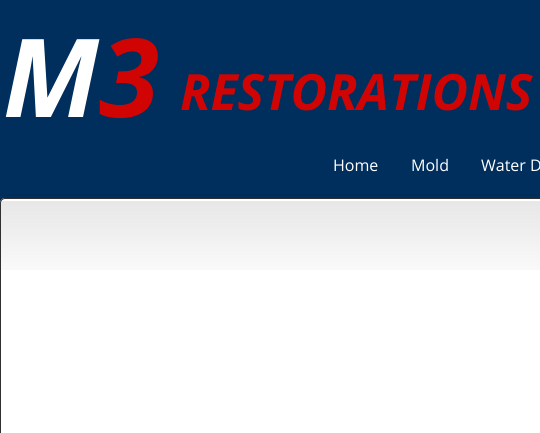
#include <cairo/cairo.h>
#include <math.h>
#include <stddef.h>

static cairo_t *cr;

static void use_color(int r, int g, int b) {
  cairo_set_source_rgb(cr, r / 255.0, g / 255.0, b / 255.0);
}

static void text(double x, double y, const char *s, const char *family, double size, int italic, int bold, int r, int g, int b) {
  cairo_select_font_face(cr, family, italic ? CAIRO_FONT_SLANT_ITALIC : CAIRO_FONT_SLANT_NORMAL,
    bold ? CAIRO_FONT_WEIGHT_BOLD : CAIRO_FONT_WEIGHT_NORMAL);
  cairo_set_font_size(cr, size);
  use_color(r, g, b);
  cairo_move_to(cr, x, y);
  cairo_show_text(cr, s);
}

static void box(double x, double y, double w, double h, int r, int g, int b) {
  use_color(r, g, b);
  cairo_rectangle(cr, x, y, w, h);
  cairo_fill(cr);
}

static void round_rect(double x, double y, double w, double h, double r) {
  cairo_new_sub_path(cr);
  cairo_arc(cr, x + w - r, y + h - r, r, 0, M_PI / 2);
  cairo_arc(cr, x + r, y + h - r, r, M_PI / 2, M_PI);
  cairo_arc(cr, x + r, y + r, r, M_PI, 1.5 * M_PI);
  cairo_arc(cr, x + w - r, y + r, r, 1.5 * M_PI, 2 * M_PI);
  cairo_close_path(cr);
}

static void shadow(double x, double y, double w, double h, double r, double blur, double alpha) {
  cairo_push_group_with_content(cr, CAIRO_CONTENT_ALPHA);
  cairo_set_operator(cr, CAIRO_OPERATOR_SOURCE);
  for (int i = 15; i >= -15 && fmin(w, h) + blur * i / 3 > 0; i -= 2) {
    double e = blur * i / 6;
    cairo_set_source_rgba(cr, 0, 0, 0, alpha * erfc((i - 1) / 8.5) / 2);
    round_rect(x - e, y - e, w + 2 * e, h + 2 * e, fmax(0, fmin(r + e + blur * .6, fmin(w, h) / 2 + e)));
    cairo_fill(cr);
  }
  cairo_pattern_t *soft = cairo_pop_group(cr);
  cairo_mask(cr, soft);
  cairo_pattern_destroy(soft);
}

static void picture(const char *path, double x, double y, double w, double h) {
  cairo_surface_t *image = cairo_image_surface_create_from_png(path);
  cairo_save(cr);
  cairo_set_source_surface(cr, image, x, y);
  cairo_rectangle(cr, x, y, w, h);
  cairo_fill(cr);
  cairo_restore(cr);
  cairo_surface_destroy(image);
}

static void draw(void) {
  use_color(0, 46, 93);
  cairo_paint(cr);
  use_color(0, 0, 0);
  shadow(0, 199, 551, 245, 5, 2, 0.6);
  box(0, 196, 540, 2, 0, 46, 93);
  use_color(255, 255, 255);
  round_rect(0, 198, 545, 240, 5);
  cairo_fill(cr);
  picture("img_01.png", 0, 201, 540, 69);
  round_rect(0.5, 198.5, 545, 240, 4.5);
  use_color(48, 48, 48);
  cairo_set_line_width(cr, 1);
  cairo_stroke(cr);
  text(3, 117, "M", "Open Sans", 109, 1, 1, 255, 255, 255);
  text(99, 117, "3", "Open Sans", 109, 1, 1, 209, 4, 4);
  text(180, 110, "RESTORATIONS", "Open Sans", 50, 1, 1, 209, 4, 4);
  text(333, 171, "Home", "Open Sans", 16, 0, 0, 255, 255, 255);
  text(411, 171, "Mold", "Open Sans", 16, 0, 0, 255, 255, 255);
  text(481, 171, "Water D", "Open Sans", 16, 0, 0, 255, 255, 255);
}

int main(void) {
  cairo_surface_t *surface = cairo_image_surface_create(CAIRO_FORMAT_RGB24, 540, 433);
  cr = cairo_create(surface);
  cairo_font_options_t *options = cairo_font_options_create();
  cairo_font_options_set_hint_metrics(options, CAIRO_HINT_METRICS_OFF);
  cairo_font_options_set_hint_style(options, CAIRO_HINT_STYLE_NONE);
  cairo_set_font_options(cr, options);
  cairo_set_miter_limit(cr, 4);
  draw();
  cairo_surface_write_to_png(surface, "out.png");
  cairo_font_options_destroy(options);
  cairo_destroy(cr);
  cairo_surface_destroy(surface);
  return 0;
}
